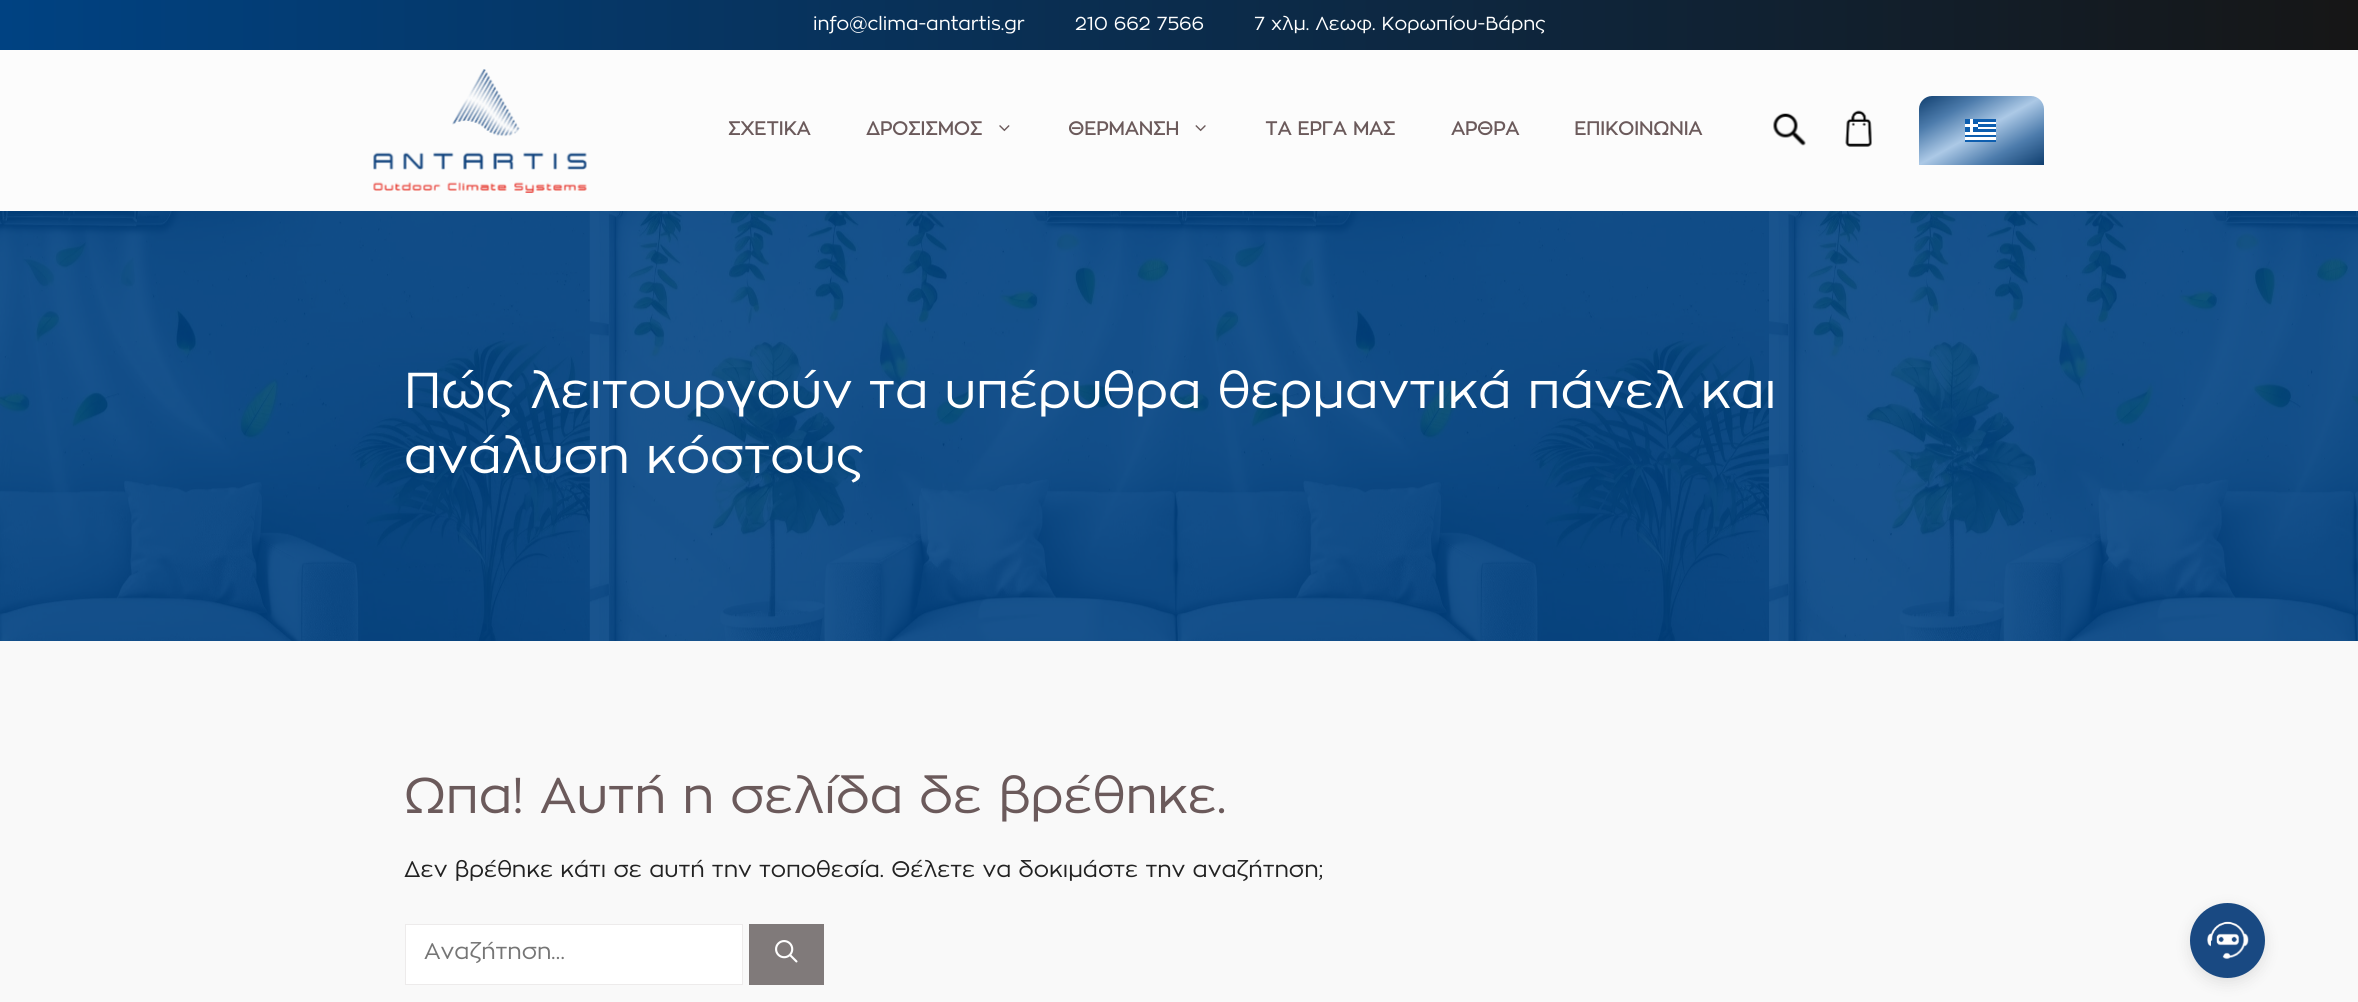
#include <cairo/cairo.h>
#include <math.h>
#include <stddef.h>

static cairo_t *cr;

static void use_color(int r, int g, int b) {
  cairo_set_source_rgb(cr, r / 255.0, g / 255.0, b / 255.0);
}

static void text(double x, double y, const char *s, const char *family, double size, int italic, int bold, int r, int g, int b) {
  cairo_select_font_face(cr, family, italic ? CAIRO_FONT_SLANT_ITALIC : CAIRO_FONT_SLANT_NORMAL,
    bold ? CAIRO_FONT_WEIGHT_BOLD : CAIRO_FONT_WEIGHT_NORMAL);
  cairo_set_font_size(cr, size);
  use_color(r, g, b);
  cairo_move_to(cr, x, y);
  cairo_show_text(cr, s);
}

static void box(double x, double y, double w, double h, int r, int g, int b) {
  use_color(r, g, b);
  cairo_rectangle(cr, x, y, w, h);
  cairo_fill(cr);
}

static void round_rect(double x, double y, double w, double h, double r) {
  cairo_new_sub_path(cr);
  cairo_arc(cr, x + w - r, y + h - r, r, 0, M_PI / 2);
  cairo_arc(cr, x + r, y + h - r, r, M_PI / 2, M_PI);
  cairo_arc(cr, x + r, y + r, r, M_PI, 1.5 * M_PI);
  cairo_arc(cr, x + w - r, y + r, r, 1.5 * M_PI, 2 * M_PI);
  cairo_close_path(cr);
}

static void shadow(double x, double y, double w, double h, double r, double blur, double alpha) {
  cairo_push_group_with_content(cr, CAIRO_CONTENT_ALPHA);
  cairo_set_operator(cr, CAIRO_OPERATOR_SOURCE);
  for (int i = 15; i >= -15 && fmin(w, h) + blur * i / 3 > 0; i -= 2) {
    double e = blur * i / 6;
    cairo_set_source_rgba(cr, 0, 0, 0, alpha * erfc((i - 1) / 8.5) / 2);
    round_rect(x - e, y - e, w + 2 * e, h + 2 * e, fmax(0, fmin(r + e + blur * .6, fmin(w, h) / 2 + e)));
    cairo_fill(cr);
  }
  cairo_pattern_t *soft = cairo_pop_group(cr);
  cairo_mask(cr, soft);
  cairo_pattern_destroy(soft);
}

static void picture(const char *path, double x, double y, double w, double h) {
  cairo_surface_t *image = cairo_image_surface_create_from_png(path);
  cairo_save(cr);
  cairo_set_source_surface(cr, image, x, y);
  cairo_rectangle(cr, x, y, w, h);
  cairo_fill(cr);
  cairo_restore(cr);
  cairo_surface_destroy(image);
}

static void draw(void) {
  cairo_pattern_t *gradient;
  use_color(249, 249, 249);
  cairo_paint(cr);
  gradient = cairo_pattern_create_linear(0, 25, 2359, 25);
  cairo_pattern_add_color_stop_rgba(gradient, 0, 0, 0.259, 0.51, 1);
  cairo_pattern_add_color_stop_rgba(gradient, 1, 0.086, 0.086, 0.086, 1);
  cairo_set_source(cr, gradient);
  cairo_pattern_destroy(gradient);
  cairo_rectangle(cr, 0, 0, 2358, 50);
  cairo_fill(cr);
  box(0, 50, 2358, 161, 252, 252, 252);
  picture("img_01.png", 373, 69, 214, 124);
  picture("img_02.png", 999, 125, 11, 7);
  picture("img_03.png", 1195, 125, 11, 7);
  picture("img_04.png", 1773, 113, 33, 33);
  picture("img_05.png", 1845, 110, 27, 37);
  gradient = cairo_pattern_create_linear(1952, 78, 2010, 183);
  cairo_pattern_add_color_stop_rgba(gradient, 0, 0.067, 0.251, 0.439, 1);
  cairo_pattern_add_color_stop_rgba(gradient, 0.25, 0.302, 0.486, 0.675, 1);
  cairo_pattern_add_color_stop_rgba(gradient, 0.5, 0.675, 0.788, 0.902, 1);
  cairo_pattern_add_color_stop_rgba(gradient, 0.75, 0.302, 0.486, 0.675, 1);
  cairo_pattern_add_color_stop_rgba(gradient, 1, 0.067, 0.251, 0.439, 1);
  cairo_set_source(cr, gradient);
  cairo_pattern_destroy(gradient);
  cairo_new_path(cr);
  cairo_move_to(cr, 1932, 96);
  cairo_line_to(cr, 2031, 96);
  cairo_curve_to(cr, 2038, 96, 2044, 102, 2044, 109);
  cairo_line_to(cr, 2044, 165);
  cairo_line_to(cr, 1919, 165);
  cairo_line_to(cr, 1919, 109);
  cairo_curve_to(cr, 1919, 102, 1925, 96, 1932, 96);
  cairo_close_path(cr);
  cairo_fill(cr);
  picture("img_06.png", 1965, 119, 31, 23);
  box(0, 211, 2358, 430, 0, 66, 130);
  picture("img_07.png", 0, 211, 2358, 430);
  use_color(255, 255, 255);
  cairo_rectangle(cr, 405.5, 924.5, 337, 60);
  cairo_fill_preserve(cr);
  use_color(237, 235, 235);
  cairo_set_line_width(cr, 1);
  cairo_stroke(cr);
  box(749, 924, 75, 61, 128, 122, 122);
  picture("img_08.png", 775, 940, 23, 23);
  use_color(0, 0, 0);
  shadow(2190, 908, 75, 75, 37.5, 7.5, 0.1);
  use_color(25, 73, 130);
  cairo_arc(cr, 2227.5, 940.5, 37.5, 0, 2 * M_PI);
  cairo_fill(cr);
  picture("img_09.png", 2207, 921, 42, 38);
  text(813, 30, "info@clima-antartis.gr", "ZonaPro", 18.75, 0, 0, 255, 255, 255);
  text(1075, 30, "210 662 7566", "ZonaPro", 18.75, 0, 0, 255, 255, 255);
  text(1254, 30, "7 χλμ. Λεωφ. Κορωπίου-Βάρης", "ZonaPro", 18.75, 0, 0, 255, 255, 255);
  text(728, 135, "ΣΧΕΤΙΚΑ", "ZonaPro", 18.75, 0, 1, 107, 90, 91);
  text(866, 135, "ΔΡΟΣΙΣΜΟΣ", "ZonaPro", 18.75, 0, 1, 107, 90, 91);
  text(1068, 135, "ΘΕΡΜΑΝΣΗ", "ZonaPro", 18.75, 0, 1, 107, 90, 91);
  text(1265, 135, "ΤΑ ΕΡΓΑ ΜΑΣ", "ZonaPro", 18.75, 0, 1, 107, 90, 91);
  text(1451, 135, "ΑΡΘΡΑ", "ZonaPro", 18.75, 0, 1, 107, 90, 91);
  text(1574, 135, "ΕΠΙΚΟΙΝΩΝΙΑ", "ZonaPro", 18.75, 0, 1, 107, 90, 91);
  text(404, 408, "Πώς λειτουργούν τα υπέρυθρα θερμαντικά πάνελ και", "ZonaPro", 50, 0, 0, 255, 255, 255);
  text(404, 473, "ανάλυση κόστους", "ZonaPro", 50, 0, 0, 255, 255, 255);
  text(404, 813, "Ωπα! Αυτή η σελίδα δε βρέθηκε.", "ZonaPro", 50, 0, 0, 107, 90, 91);
  text(404, 877, "Δεν βρέθηκε κάτι σε αυτή την τοποθεσία. Θέλετε να δοκιμάστε την αναζήτηση;", "ZonaPro", 22.5, 0, 0, 34, 34, 34);
  text(424, 959, "Αναζήτηση…", "ZonaPro", 22.5, 0, 0, 117, 117, 117);
}

int main(void) {
  cairo_surface_t *surface = cairo_image_surface_create(CAIRO_FORMAT_RGB24, 2358, 1002);
  cr = cairo_create(surface);
  cairo_font_options_t *options = cairo_font_options_create();
  cairo_font_options_set_hint_metrics(options, CAIRO_HINT_METRICS_OFF);
  cairo_font_options_set_hint_style(options, CAIRO_HINT_STYLE_NONE);
  cairo_set_font_options(cr, options);
  cairo_set_miter_limit(cr, 4);
  draw();
  cairo_surface_write_to_png(surface, "out.png");
  cairo_font_options_destroy(options);
  cairo_destroy(cr);
  cairo_surface_destroy(surface);
  return 0;
}
